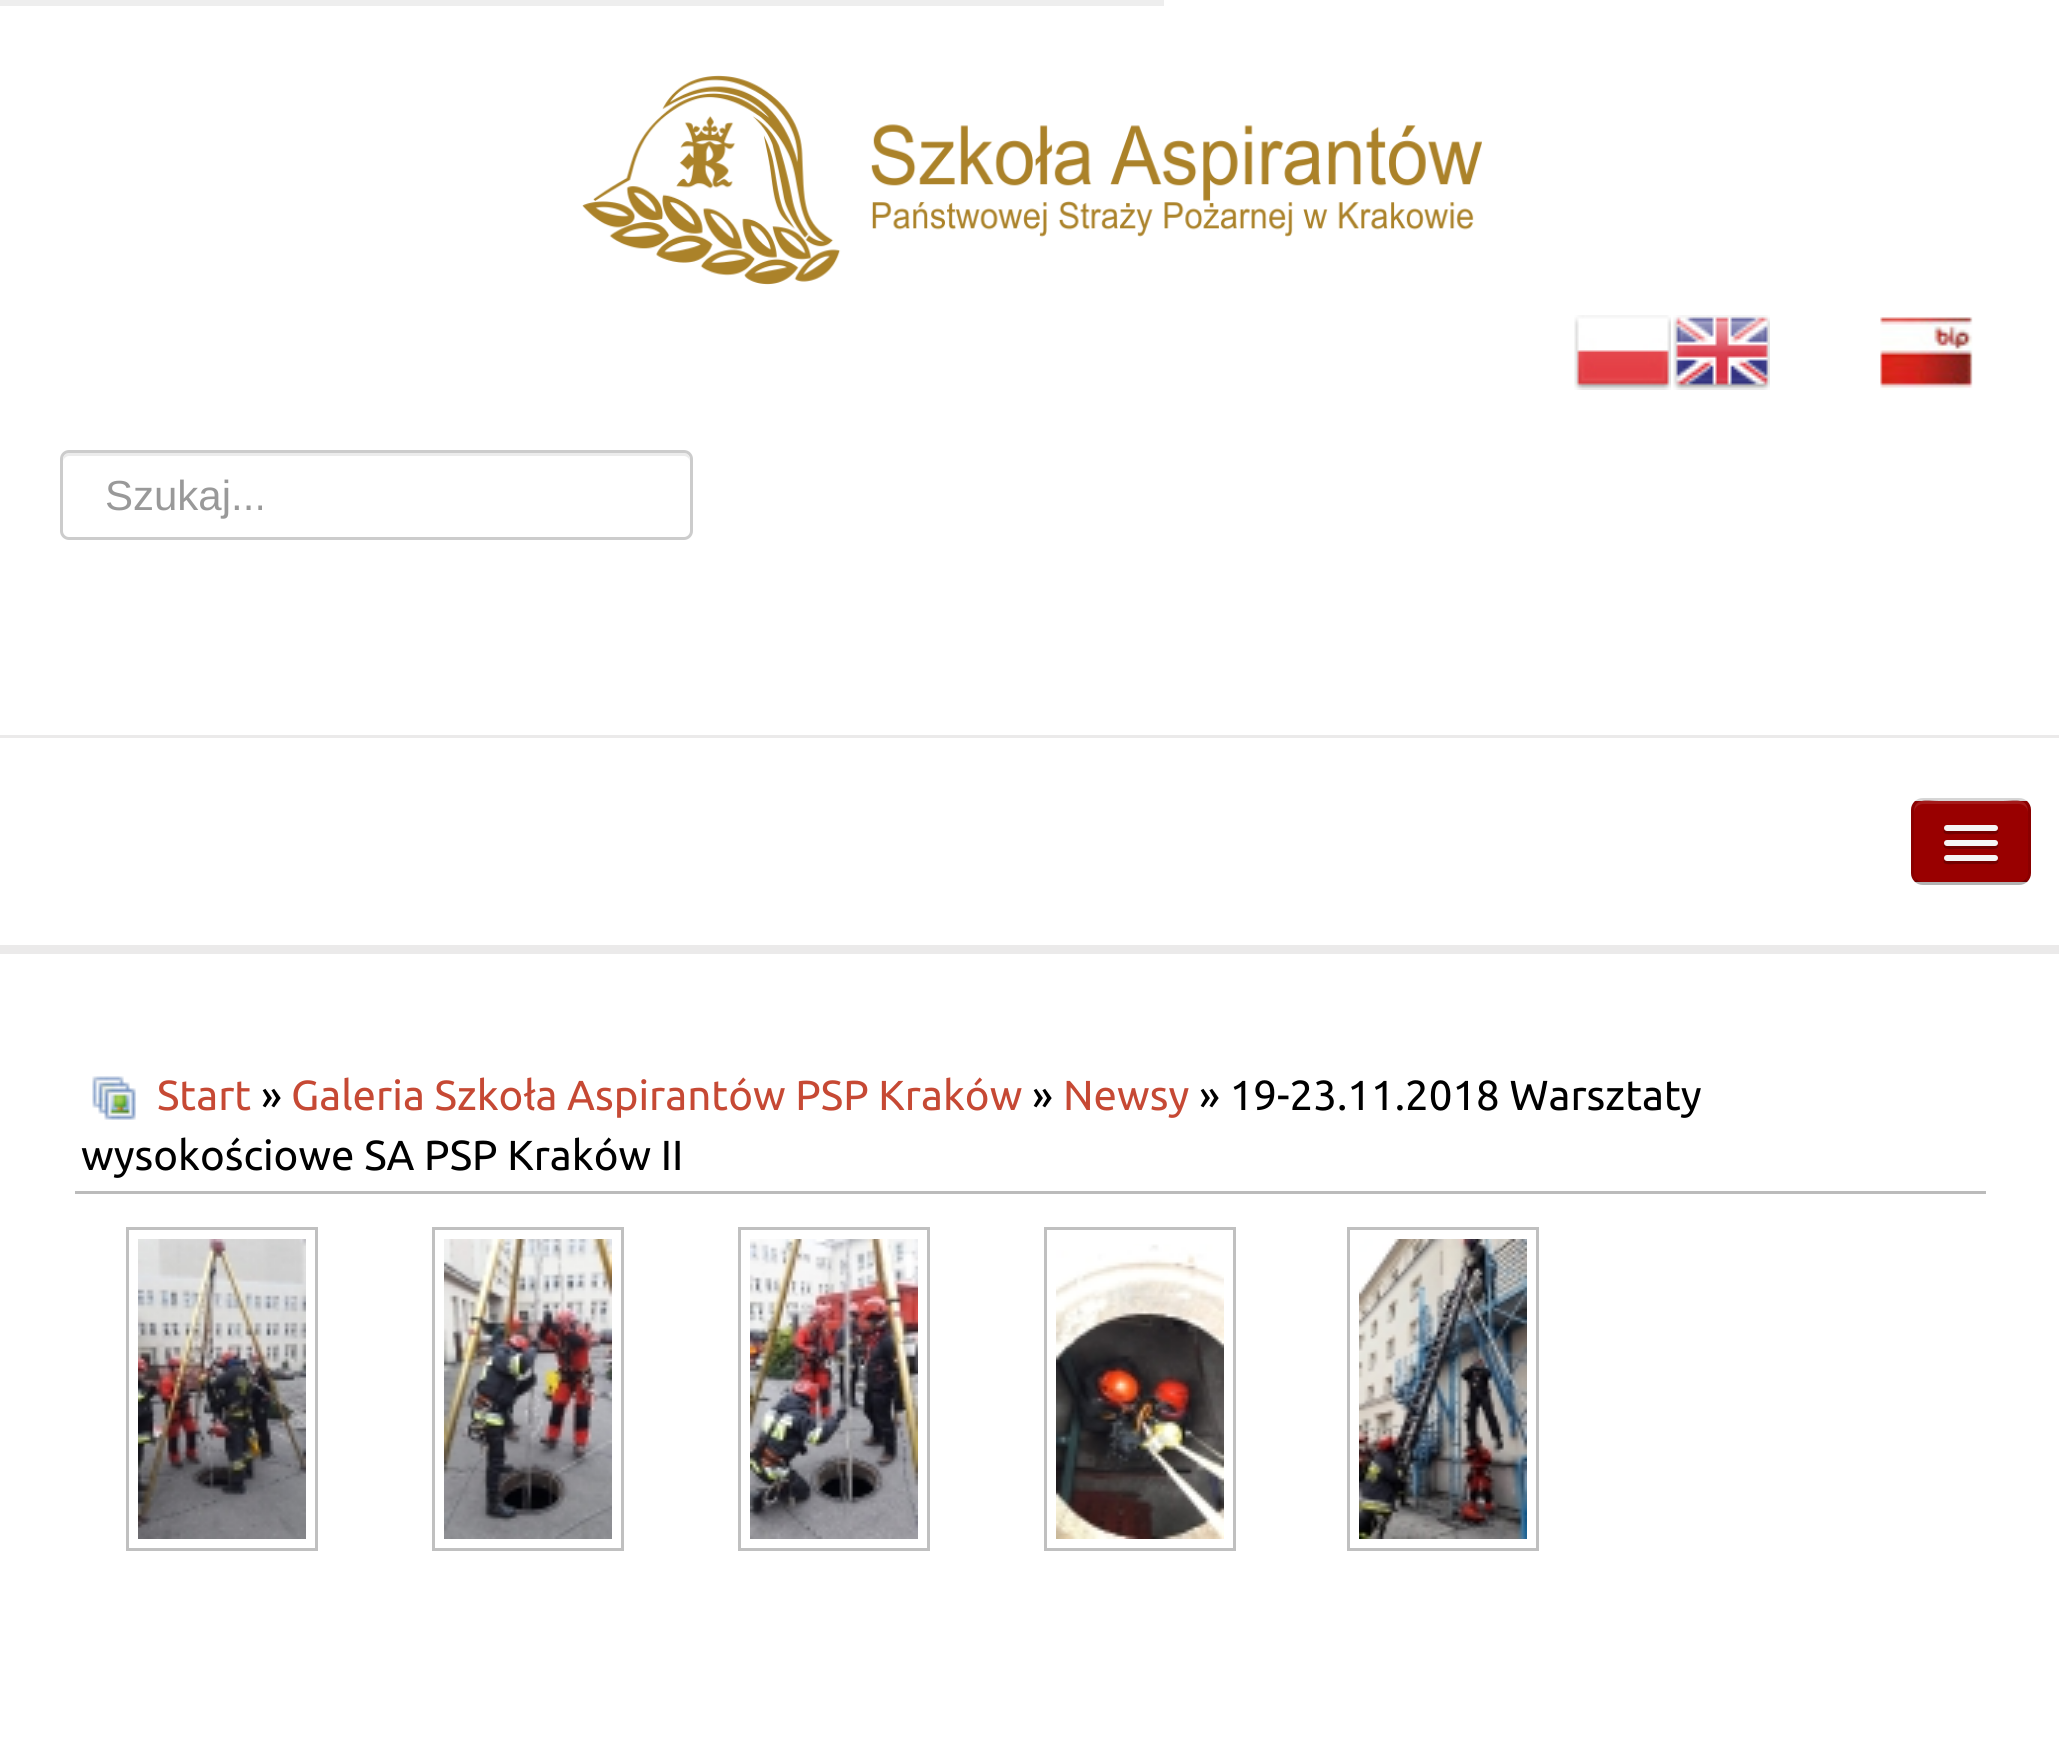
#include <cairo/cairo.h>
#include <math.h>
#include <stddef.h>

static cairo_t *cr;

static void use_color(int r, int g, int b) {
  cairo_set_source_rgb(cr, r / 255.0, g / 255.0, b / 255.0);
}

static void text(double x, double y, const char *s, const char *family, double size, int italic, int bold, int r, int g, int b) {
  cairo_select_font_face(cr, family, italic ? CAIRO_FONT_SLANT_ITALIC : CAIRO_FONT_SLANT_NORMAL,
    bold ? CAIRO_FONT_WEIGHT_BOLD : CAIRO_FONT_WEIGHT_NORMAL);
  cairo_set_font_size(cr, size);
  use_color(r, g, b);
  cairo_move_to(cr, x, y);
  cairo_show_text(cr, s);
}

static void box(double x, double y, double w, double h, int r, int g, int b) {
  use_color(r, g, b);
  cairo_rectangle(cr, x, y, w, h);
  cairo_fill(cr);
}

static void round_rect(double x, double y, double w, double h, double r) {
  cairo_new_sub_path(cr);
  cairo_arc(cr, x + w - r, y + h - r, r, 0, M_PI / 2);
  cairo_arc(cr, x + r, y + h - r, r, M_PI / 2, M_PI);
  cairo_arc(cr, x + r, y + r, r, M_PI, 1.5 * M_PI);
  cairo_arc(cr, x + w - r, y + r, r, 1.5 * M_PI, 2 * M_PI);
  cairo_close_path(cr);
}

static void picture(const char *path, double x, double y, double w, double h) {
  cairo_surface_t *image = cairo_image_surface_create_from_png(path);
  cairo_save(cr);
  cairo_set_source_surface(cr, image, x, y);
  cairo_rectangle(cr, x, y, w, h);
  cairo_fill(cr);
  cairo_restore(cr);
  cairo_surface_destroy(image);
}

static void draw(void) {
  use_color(255, 255, 255);
  cairo_paint(cr);
  box(0, 0, 1164, 6, 238, 238, 238);
  picture("img_01.png", 582, 75, 900, 210);
  picture("img_02.png", 1574, 315, 97, 75);
  picture("img_03.png", 1673, 315, 97, 75);
  picture("img_04.png", 1880, 317, 93, 73);
  use_color(236, 236, 236);
  cairo_new_path(cr);
  cairo_move_to(cr, 69, 456);
  cairo_line_to(cr, 684, 456);
  cairo_curve_to(cr, 687, 456, 690, 459, 690, 462);
  cairo_curve_to(cr, 690, 458, 689, 453, 684, 453);
  cairo_line_to(cr, 69, 453);
  cairo_curve_to(cr, 64, 453, 63, 458, 63, 462);
  cairo_curve_to(cr, 63, 459, 66, 456, 69, 456);
  cairo_close_path(cr);
  cairo_fill(cr);
  round_rect(61.5, 451.5, 630, 87, 7.5);
  use_color(204, 204, 204);
  cairo_set_line_width(cr, 3);
  cairo_stroke(cr);
  box(0, 735, 2059, 3, 235, 234, 234);
  box(0, 945, 2059, 9, 235, 234, 234);
  use_color(237, 237, 237);
  round_rect(1911, 798, 120, 87, 12);
  cairo_fill(cr);
  cairo_save(cr);
  round_rect(1911, 798, 120, 87, 12);
  cairo_clip(cr);
  box(1911, 801, 120, 81, 153, 0, 0);
  cairo_restore(cr);
  use_color(163, 26, 26);
  cairo_new_path(cr);
  cairo_move_to(cr, 1923, 804);
  cairo_line_to(cr, 2019, 804);
  cairo_curve_to(cr, 2024, 804, 2028, 808, 2028, 813);
  cairo_curve_to(cr, 2028, 797, 2016, 801, 2003, 801);
  cairo_line_to(cr, 1939, 801);
  cairo_curve_to(cr, 1926, 801, 1914, 797, 1914, 813);
  cairo_curve_to(cr, 1914, 808, 1918, 804, 1923, 804);
  cairo_close_path(cr);
  cairo_fill(cr);
  cairo_new_path(cr);
  cairo_move_to(cr, 2026.5, 880.5);
  cairo_curve_to(cr, 2024.5, 882.5, 2022, 883.5, 2019, 883.5);
  cairo_line_to(cr, 1923, 883.5);
  cairo_curve_to(cr, 1920, 883.5, 1917.5, 882.5, 1915.5, 880.5);
  cairo_set_source_rgba(cr, 0, 0, 0, 0.25);
  cairo_stroke(cr);
  cairo_new_path(cr);
  cairo_move_to(cr, 1915.5, 880.5);
  cairo_curve_to(cr, 1913.5, 878.5, 1912.5, 876, 1912.5, 873);
  cairo_line_to(cr, 1912.5, 810);
  cairo_curve_to(cr, 1912.5, 807, 1913.5, 804.5, 1915.5, 802.5);
  cairo_curve_to(cr, 1917.5, 800.5, 1920, 799.5, 1923, 799.5);
  cairo_line_to(cr, 2019, 799.5);
  cairo_curve_to(cr, 2022, 799.5, 2024.5, 800.5, 2026.5, 802.5);
  cairo_curve_to(cr, 2028.5, 804.5, 2029.5, 807, 2029.5, 810);
  cairo_line_to(cr, 2029.5, 873);
  cairo_curve_to(cr, 2029.5, 876, 2028.5, 878.5, 2026.5, 880.5);
  cairo_set_source_rgba(cr, 0, 0, 0, 0.1);
  cairo_stroke(cr);
  use_color(115, 0, 0);
  cairo_new_path(cr);
  cairo_move_to(cr, 1944, 830);
  cairo_curve_to(cr, 1941, 836, 1955, 834, 1955, 834);
  cairo_line_to(cr, 1987, 834);
  cairo_curve_to(cr, 1987, 834, 2001, 836, 1998, 830);
  cairo_curve_to(cr, 1997, 830, 1996, 831, 1995, 831);
  cairo_line_to(cr, 1947, 831);
  cairo_curve_to(cr, 1946, 831, 1945, 830, 1944, 830);
  cairo_close_path(cr);
  cairo_fill(cr);
  use_color(245, 245, 245);
  round_rect(1944, 825, 54, 6, 3);
  cairo_fill(cr);
  use_color(115, 0, 0);
  cairo_new_path(cr);
  cairo_move_to(cr, 1944, 844);
  cairo_curve_to(cr, 1941, 851, 1955, 849, 1955, 849);
  cairo_line_to(cr, 1987, 849);
  cairo_curve_to(cr, 1987, 849, 2001, 851, 1998, 844);
  cairo_curve_to(cr, 1997, 845, 1996, 846, 1995, 846);
  cairo_line_to(cr, 1947, 846);
  cairo_curve_to(cr, 1946, 846, 1945, 845, 1944, 844);
  cairo_close_path(cr);
  cairo_fill(cr);
  use_color(245, 245, 245);
  round_rect(1944, 840, 54, 6, 3);
  cairo_fill(cr);
  use_color(115, 0, 0);
  cairo_new_path(cr);
  cairo_move_to(cr, 1944, 860);
  cairo_curve_to(cr, 1941, 866, 1955, 864, 1955, 864);
  cairo_line_to(cr, 1987, 864);
  cairo_curve_to(cr, 1987, 864, 2001, 866, 1998, 860);
  cairo_curve_to(cr, 1997, 860, 1996, 861, 1995, 861);
  cairo_line_to(cr, 1947, 861);
  cairo_curve_to(cr, 1946, 861, 1945, 860, 1944, 860);
  cairo_close_path(cr);
  cairo_fill(cr);
  use_color(245, 245, 245);
  round_rect(1944, 855, 54, 6, 3);
  cairo_fill(cr);
  box(75, 1191, 1911, 3, 187, 187, 187);
  picture("img_05.png", 92, 1076, 44, 44);
  cairo_rectangle(cr, 127.5, 1228.5, 189, 321);
  use_color(192, 192, 192);
  cairo_stroke(cr);
  picture("img_06.png", 138, 1239, 168, 300);
  cairo_rectangle(cr, 433.5, 1228.5, 189, 321);
  cairo_stroke(cr);
  picture("img_07.png", 444, 1239, 168, 300);
  cairo_rectangle(cr, 739.5, 1228.5, 189, 321);
  cairo_stroke(cr);
  picture("img_08.png", 750, 1239, 168, 300);
  cairo_rectangle(cr, 1045.5, 1228.5, 189, 321);
  cairo_stroke(cr);
  picture("img_09.png", 1056, 1244, 168, 295);
  cairo_rectangle(cr, 1348.5, 1228.5, 189, 321);
  cairo_stroke(cr);
  picture("img_10.png", 1359, 1239, 168, 300);
  text(105, 510, "Szukaj...", "Liberation Sans", 42, 0, 0, 153, 153, 153);
  text(157, 1110, "Start", "Ubuntu", 42, 0, 0, 198, 73, 52);
  text(261, 1110, "»", "Ubuntu", 42, 0, 0, 0, 0, 0);
  text(291, 1110, "Galeria Szkoła Aspirantów PSP Kraków", "Ubuntu", 42, 0, 0, 198, 73, 52);
  text(1032, 1110, "»", "Ubuntu", 42, 0, 0, 0, 0, 0);
  text(1063, 1110, "Newsy", "Ubuntu", 42, 0, 0, 198, 73, 52);
  text(1199, 1110, "» 19-23.11.2018 Warsztaty", "Ubuntu", 42, 0, 0, 0, 0, 0);
  text(81, 1170, "wysokościowe SA PSP Kraków II", "Ubuntu", 42, 0, 0, 0, 0, 0);
}

int main(void) {
  cairo_surface_t *surface = cairo_image_surface_create(CAIRO_FORMAT_RGB24, 2059, 1762);
  cr = cairo_create(surface);
  cairo_font_options_t *options = cairo_font_options_create();
  cairo_font_options_set_hint_metrics(options, CAIRO_HINT_METRICS_OFF);
  cairo_font_options_set_hint_style(options, CAIRO_HINT_STYLE_NONE);
  cairo_set_font_options(cr, options);
  cairo_set_miter_limit(cr, 4);
  draw();
  cairo_surface_write_to_png(surface, "out.png");
  cairo_font_options_destroy(options);
  cairo_destroy(cr);
  cairo_surface_destroy(surface);
  return 0;
}
